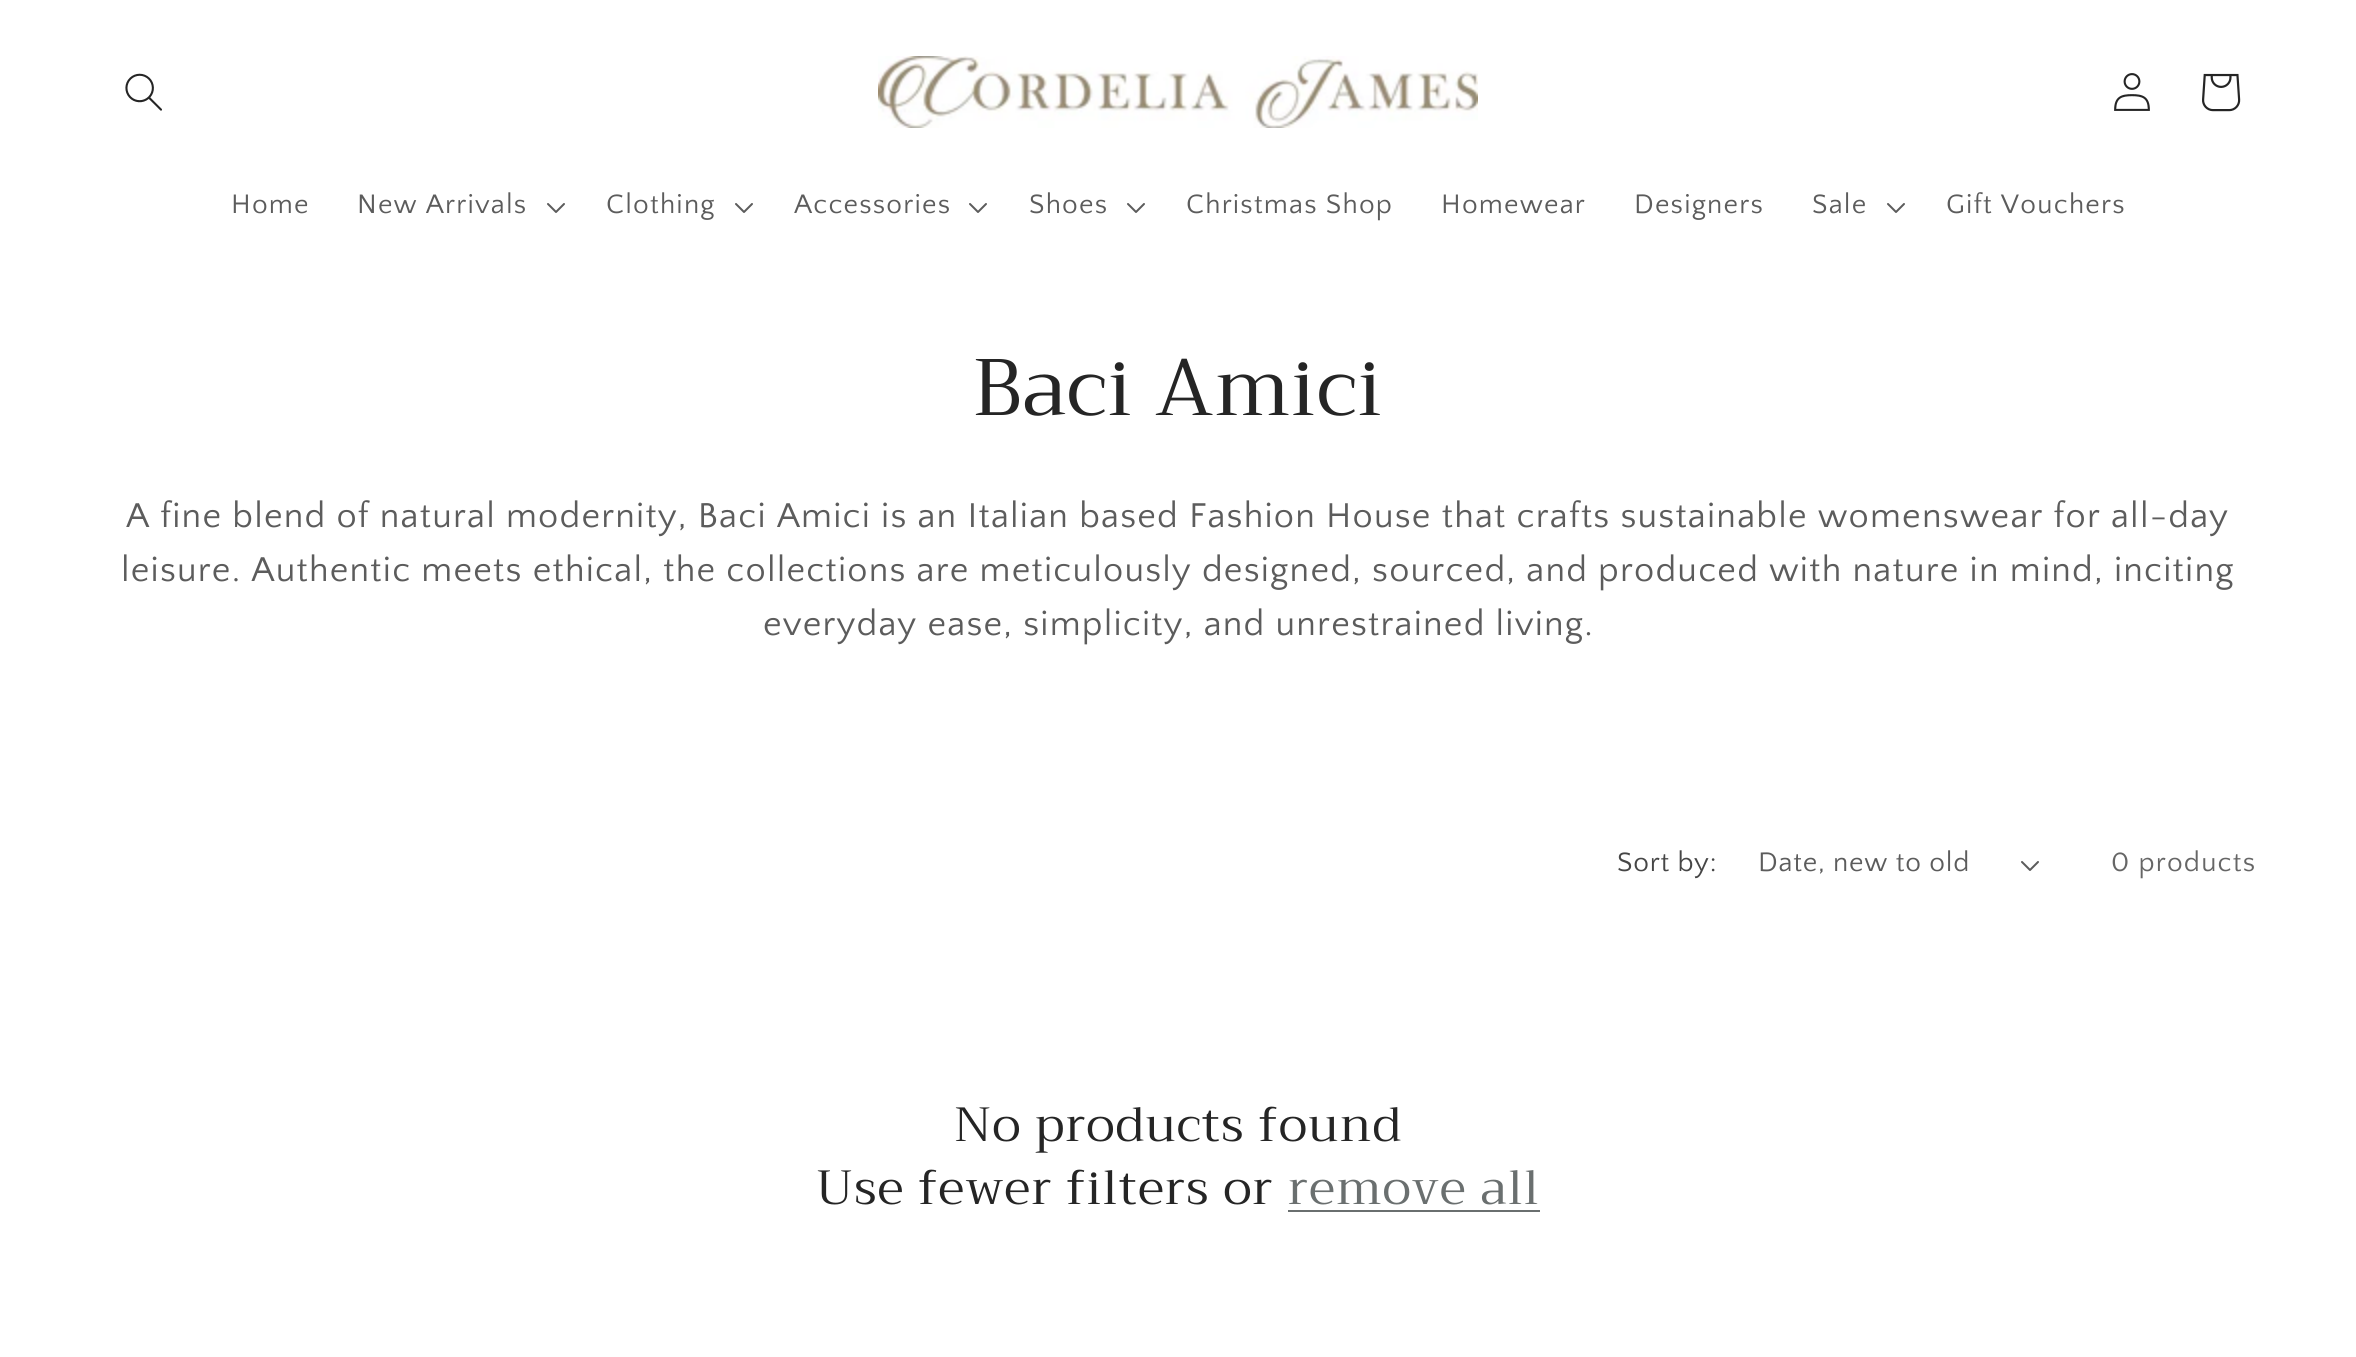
#include <cairo/cairo.h>
#include <math.h>
#include <stddef.h>

static cairo_t *cr;

static void use_color(int r, int g, int b) {
  cairo_set_source_rgb(cr, r / 255.0, g / 255.0, b / 255.0);
}

static void spaced_text(double x, double y, const char *s, double letter, double word) {
  cairo_move_to(cr, x, y);
  while (*s) {
    char ch[5] = {0};
    int n = 0;
    do ch[n++] = *s++; while ((*s & 0xC0) == 0x80);
    cairo_show_text(cr, ch);
    cairo_rel_move_to(cr, letter + word * (*ch == ' '), 0);
  }
}

static void box(double x, double y, double w, double h, int r, int g, int b) {
  use_color(r, g, b);
  cairo_rectangle(cr, x, y, w, h);
  cairo_fill(cr);
}

static void picture(const char *path, double x, double y, double w, double h) {
  cairo_surface_t *image = cairo_image_surface_create_from_png(path);
  cairo_save(cr);
  cairo_set_source_surface(cr, image, x, y);
  cairo_rectangle(cr, x, y, w, h);
  cairo_fill(cr);
  cairo_restore(cr);
  cairo_surface_destroy(image);
}

static void draw(void) {
  use_color(255, 255, 255);
  cairo_paint(cr);
  picture("img_01.png", 125, 73, 37, 38);
  picture("img_02.png", 878, 56, 600, 72);
  picture("img_03.png", 2114, 73, 36, 38);
  picture("img_04.png", 2202, 73, 39, 39);
  picture("img_05.png", 547, 203, 18, 10);
  picture("img_05.png", 735, 203, 18, 10);
  picture("img_05.png", 969, 203, 18, 10);
  picture("img_05.png", 1127, 203, 18, 10);
  picture("img_05.png", 1887, 203, 18, 10);
  picture("img_05.png", 2021, 861, 18, 10);
  box(1288, 1210, 252, 2, 106, 111, 111);
  cairo_select_font_face(cr, "Quattrocento Sans", CAIRO_FONT_SLANT_NORMAL, CAIRO_FONT_WEIGHT_NORMAL);
  cairo_set_font_size(cr, 28);
  use_color(92, 92, 92);
  spaced_text(231, 213, "Home", 1.2, 0);
  spaced_text(357, 213, "New Arrivals", 1.2, 0);
  spaced_text(606, 213, "Clothing", 1.2, 0);
  spaced_text(794, 213, "Accessories", 1.2, 0);
  spaced_text(1029, 213, "Shoes", 1.2, 0);
  spaced_text(1186, 213, "Christmas Shop", 1.2, 0);
  spaced_text(1441, 213, "Homewear", 1.2, 0);
  spaced_text(1634, 213, "Designers", 1.2, 0);
  spaced_text(1812, 213, "Sale", 1.2, 0);
  spaced_text(1946, 213, "Gift Vouchers", 1.2, 0);
  cairo_select_font_face(cr, "Trirong", CAIRO_FONT_SLANT_NORMAL, CAIRO_FONT_WEIGHT_NORMAL);
  cairo_set_font_size(cr, 80);
  use_color(37, 37, 37);
  spaced_text(973, 415, "Baci Amici", 1.2, 0);
  cairo_select_font_face(cr, "Quattrocento Sans", CAIRO_FONT_SLANT_NORMAL, CAIRO_FONT_WEIGHT_NORMAL);
  cairo_set_font_size(cr, 36);
  use_color(92, 92, 92);
  spaced_text(126, 527, "A fine blend of natural modernity, Baci Amici is an Italian based Fashion House that crafts sustainable womenswear for all-day", 1.2, 0);
  spaced_text(121, 581, "leisure. Authentic meets ethical, the collections are meticulously designed, sourced, and produced with nature in mind, inciting", 1.2, 0);
  spaced_text(763, 635, "everyday ease, simplicity, and unrestrained living.", 1.2, 0);
  cairo_set_font_size(cr, 28);
  use_color(70, 70, 70);
  spaced_text(1617, 871, "Sort by:", 0.75, 0);
  use_color(92, 92, 92);
  spaced_text(1758, 871, "Date, new to old", 0.75, 0);
  use_color(102, 102, 102);
  spaced_text(2111, 871, "0 products", 1.2, 0);
  cairo_select_font_face(cr, "Trirong", CAIRO_FONT_SLANT_NORMAL, CAIRO_FONT_WEIGHT_NORMAL);
  cairo_set_font_size(cr, 48);
  use_color(37, 37, 37);
  spaced_text(954, 1141, "No products found", 1.2, 0);
  spaced_text(816, 1204, "Use fewer filters or", 1.2, 0);
  use_color(106, 111, 111);
  spaced_text(1288, 1204, "remove all", 1.2, 0);
}

int main(void) {
  cairo_surface_t *surface = cairo_image_surface_create(CAIRO_FORMAT_RGB24, 2356, 1357);
  cr = cairo_create(surface);
  cairo_font_options_t *options = cairo_font_options_create();
  cairo_font_options_set_hint_metrics(options, CAIRO_HINT_METRICS_OFF);
  cairo_font_options_set_hint_style(options, CAIRO_HINT_STYLE_NONE);
  cairo_set_font_options(cr, options);
  cairo_set_miter_limit(cr, 4);
  draw();
  cairo_surface_write_to_png(surface, "out.png");
  cairo_font_options_destroy(options);
  cairo_destroy(cr);
  cairo_surface_destroy(surface);
  return 0;
}
